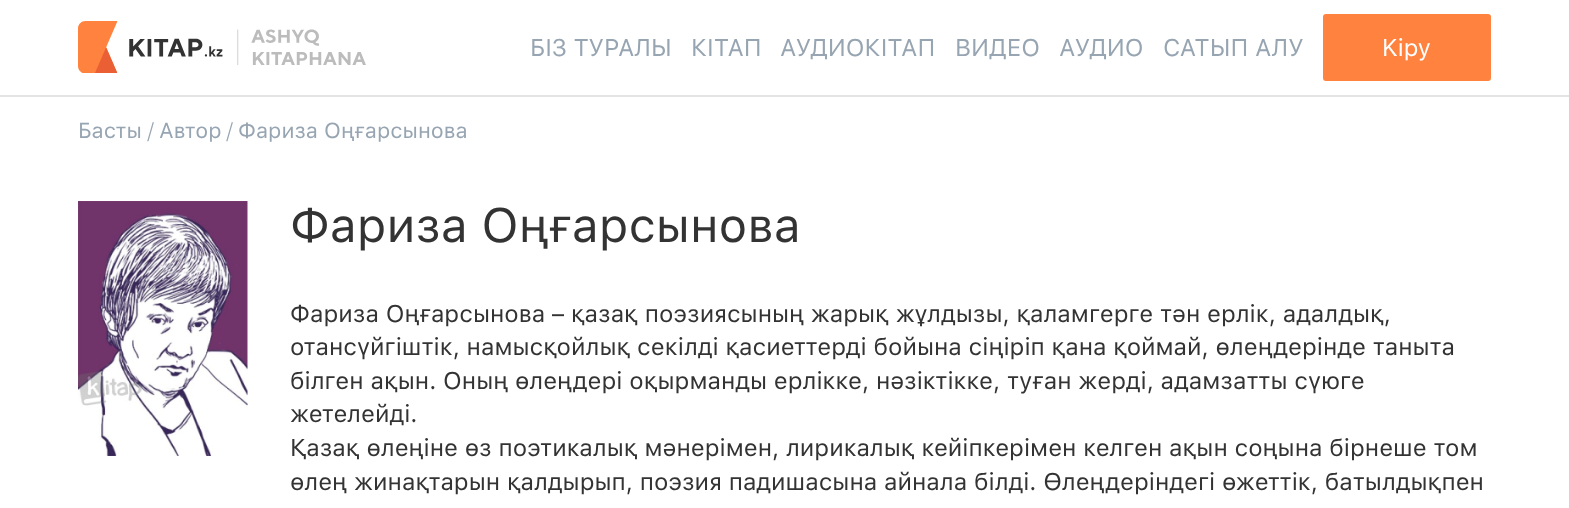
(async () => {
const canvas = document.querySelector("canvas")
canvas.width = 1569
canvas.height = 508
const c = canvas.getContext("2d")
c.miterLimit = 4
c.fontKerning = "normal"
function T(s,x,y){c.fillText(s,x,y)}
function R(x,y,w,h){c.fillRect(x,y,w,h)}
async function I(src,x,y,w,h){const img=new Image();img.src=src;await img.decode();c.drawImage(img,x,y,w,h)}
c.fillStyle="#fff"
R(0,0,1569,508)
c.fillStyle="#e4e4e4"
R(0,95,1569,2)
await I("1.png",78,21,288,52)
c.font="24px SF Pro Text"
c.fillStyle="#97a5b2"
T("БІЗ ТУРАЛЫ",530,56)
T("КІТАП",691,56)
T("АУДИОКІТАП",780,56)
T("ВИДЕО",955,56)
T("АУДИО",1059,56)
T("САТЫП АЛУ",1163,56)
c.fillStyle="#ff833e"
c.beginPath()
c.roundRect(1324,15,166,65,2)
c.fill()
c.strokeStyle="#ff833e"
c.lineWidth=2
c.stroke()
c.fillStyle="#fff"
T("Kipy",1382,56)
c.font="21.6px SF Pro Text"
c.fillStyle="#97a5b2"
T("Басты",78,138)
c.font="300 21.6px SF Pro Text"
T("/",147,138)
c.font="21.6px SF Pro Text"
T("Автор",159,138)
c.font="300 21.6px SF Pro Text"
T("/",226,138)
c.font="21.6px SF Pro Text"
T("Фариза Оңғарсынова",238,138)
await I("2.png",78,201,170,255)
c.font="48px SF Pro Text"
c.fillStyle="#333"
T("Фариза Оңғарсынова",290,242)
c.font="24px SF Pro Text"
T("Фариза Оңғарсынова – қазақ поэзиясының жарық жұлдызы, қаламгерге тән ерлік, адалдық,",290,322)
T("отансүйгіштік, намысқойлық секілді қасиеттерді бойына сіңіріп қана қоймай, өлеңдерінде таныта",290,355)
T("білген ақын. Оның өлеңдері оқырманды ерлікке, нәзіктікке, туған жерді, адамзатты сүюге",290,389)
T("жетелейді.",290,422)
T("Қазақ өлеңіне өз поэтикалық мәнерімен, лирикалық кейіпкерімен келген ақын соңына бірнеше том",290,456)
T("өлең жинақтарын қалдырып, поэзия падишасына айнала білді. Өлеңдеріндегі өжеттік, батылдықпен",290,490)
})()
